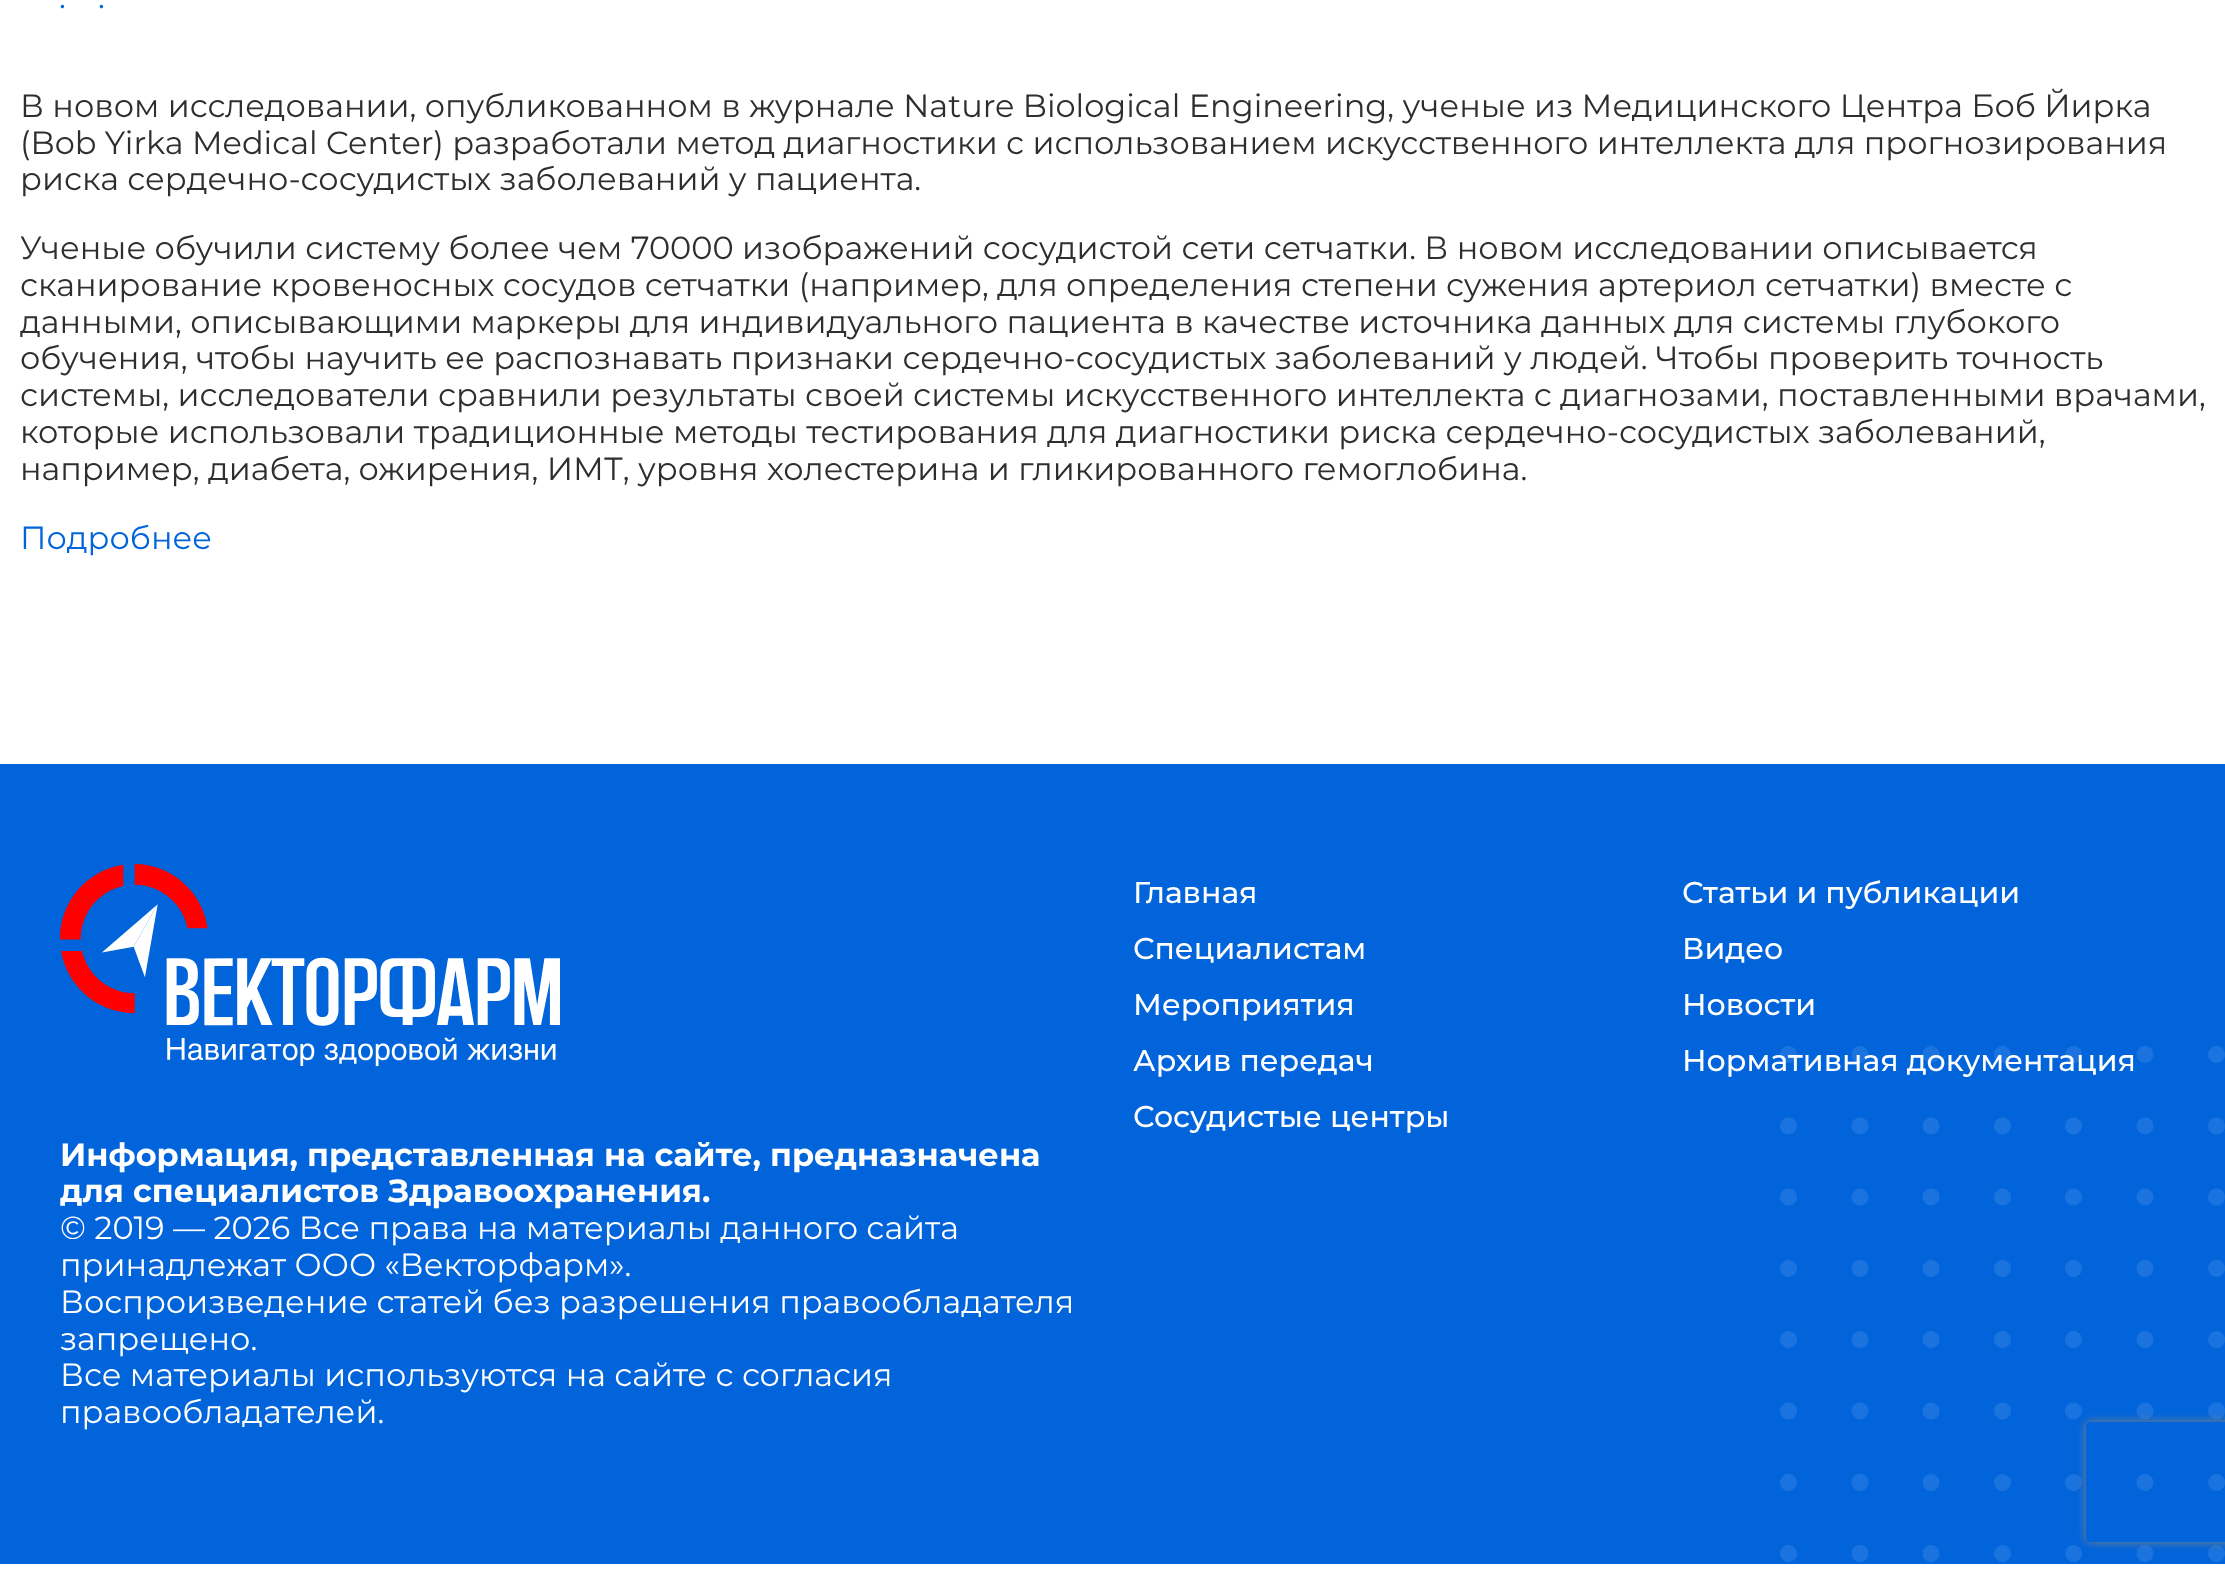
(async () => {
const canvas = document.querySelector("canvas")
canvas.width = 2225
canvas.height = 1570
const c = canvas.getContext("2d")
c.miterLimit = 4
c.fontKerning = "normal"
function T(s,x,y){c.fillText(s,x,y)}
function R(x,y,w,h){c.fillRect(x,y,w,h)}
async function I(src,x,y,w,h){const img=new Image();img.src=src;await img.decode();c.drawImage(img,x,y,w,h)}
let path
c.fillStyle="#fff"
R(0,0,2225,1570)
c.font="32px Montserrat"
c.fillStyle="#0164db"
T(".",59,8)
T(".",98,8)
c.fillStyle="#2e2e2e"
T("В новом исследовании, опубликованном в журнале Nature Biological Engineering, ученые из Медицинского Центра Боб Йирка",20,117)
T("(Bob Yirka Medical Center) разработали метод диагностики с использованием искусственного интеллекта для прогнозирования",20,154)
T("риска сердечно-сосудистых заболеваний у пациента.",20,190)
T("Ученые обучили систему более чем 70000 изображений сосудистой сети сетчатки. В новом исследовании описывается",20,259)
T("сканирование кровеносных сосудов сетчатки (например, для определения степени сужения артериол сетчатки) вместе с",20,296)
T("данными, описывающими маркеры для индивидуального пациента в качестве источника данных для системы глубокого",20,333)
T("обучения, чтобы научить ее распознавать признаки сердечно-сосудистых заболеваний у людей. Чтобы проверить точность",20,369)
T("системы, исследователи сравнили результаты своей системы искусственного интеллекта с диагнозами, поставленными врачами,",20,406)
T("которые использовали традиционные методы тестирования для диагностики риска сердечно-сосудистых заболеваний,",20,443)
T("например, диабета, ожирения, ИМТ, уровня холестерина и гликированного гемоглобина.",20,480)
c.fillStyle="#0164db"
T("Подробнее",20,549)
R(0,764,2225,800)
await I("1.png",1780,1046,445,516)
c.font="500 30px Montserrat"
c.fillStyle="#fff"
T("Главная",1133,903)
T("Статьи и публикации",1682,903)
T("Специалистам",1133,959)
T("Видео",1682,959)
T("Мероприятия",1133,1015)
T("Новости",1682,1015)
T("Архив передач",1133,1071)
T("Нормативная документация",1682,1071)
T("Сосудистые центры",1133,1127)
await I("2.png",60,864,500,202)
c.font="bold 32px Montserrat"
T("Информация, представленная на сайте, предназначена",60,1166)
T("для специалистов Здравоохранения.",60,1202)
c.font="32px Montserrat"
T("© 2019 — 2026 Все права на материалы данного сайта",60,1239)
T("принадлежат ООО «Векторфарм».",60,1276)
T("Воспроизведение статей без разрешения правообладателя",60,1313)
T("запрещено.",60,1350)
T("Все материалы используются на сайте с согласия",60,1386)
T("правообладателей.",60,1423)
c.save()
path = new Path2D("M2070 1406h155v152h-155zm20 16h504c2 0 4 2 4 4v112c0 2-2 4-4 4h-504c-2 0-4-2-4-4v-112c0-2 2-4 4-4z")
c.clip(path,"evenodd")
c.fillStyle="#808080"
c.filter="blur(5px)"
c.beginPath()
c.roundRect(2086,1422,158,120,4)
c.fill()
c.filter="none"
c.restore()
})()
